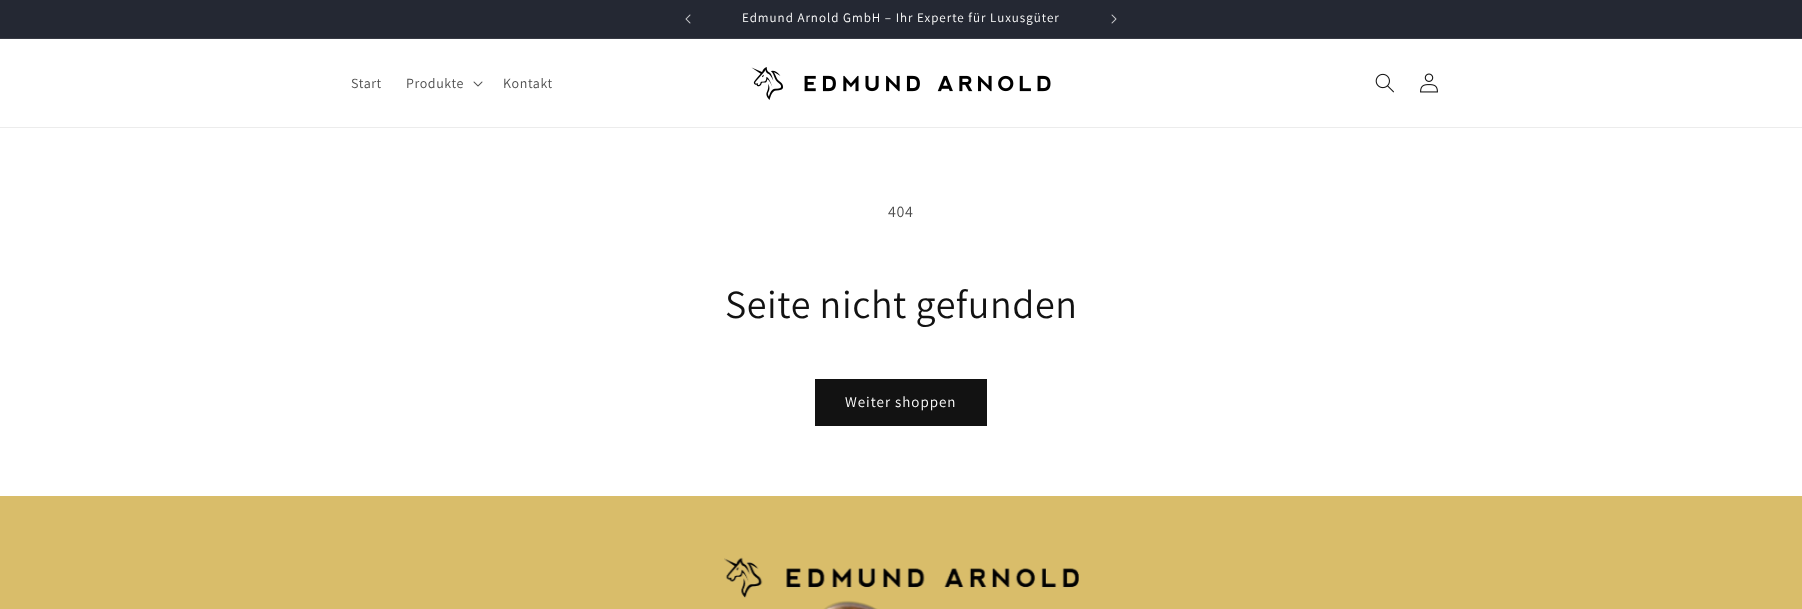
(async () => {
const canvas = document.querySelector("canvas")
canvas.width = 1802
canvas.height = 609
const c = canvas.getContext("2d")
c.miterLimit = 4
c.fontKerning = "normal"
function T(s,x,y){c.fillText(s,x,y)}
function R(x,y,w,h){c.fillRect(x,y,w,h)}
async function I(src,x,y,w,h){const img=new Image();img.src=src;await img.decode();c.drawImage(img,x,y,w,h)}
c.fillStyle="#fff"
R(0,0,1802,609)
c.fillStyle="#242833"
R(0,0,1802,38)
c.fillStyle="#363943"
R(0,38,1802,1)
await I("1.png",685,14,6,10)
c.letterSpacing="1px"
c.font="13px Assistant"
c.fillStyle="#fff"
T("Edmund Arnold GmbH – Ihr Experte für Luxusgüter",742,22)
await I("2.png",1111,14,6,10)
c.fillStyle="#ececec"
R(0,127,1802,1)
c.letterSpacing="0.6px"
c.font="14px Assistant"
c.fillStyle="#4d4d4d"
T("Start",351,88)
T("Produkte",406,88)
await I("3.png",473,81,10,6)
T("Kontakt",503,88)
await I("4.png",751,67,300,33)
await I("5.png",1375,73,19,20)
await I("6.png",1420,73,18,20)
c.font="16px Assistant"
T("404",888,217)
c.font="40px Assistant"
c.fillStyle="#121212"
T("Seite nicht gefunden",725,318)
R(815,379,172,47)
c.letterSpacing="1px"
c.font="15px Assistant"
c.fillStyle="#fff"
T("Weiter shoppen",845,407)
c.fillStyle="#d9bd6a"
R(0,496,1802,113)
await I("7.png",724,557,355,52)
})()
